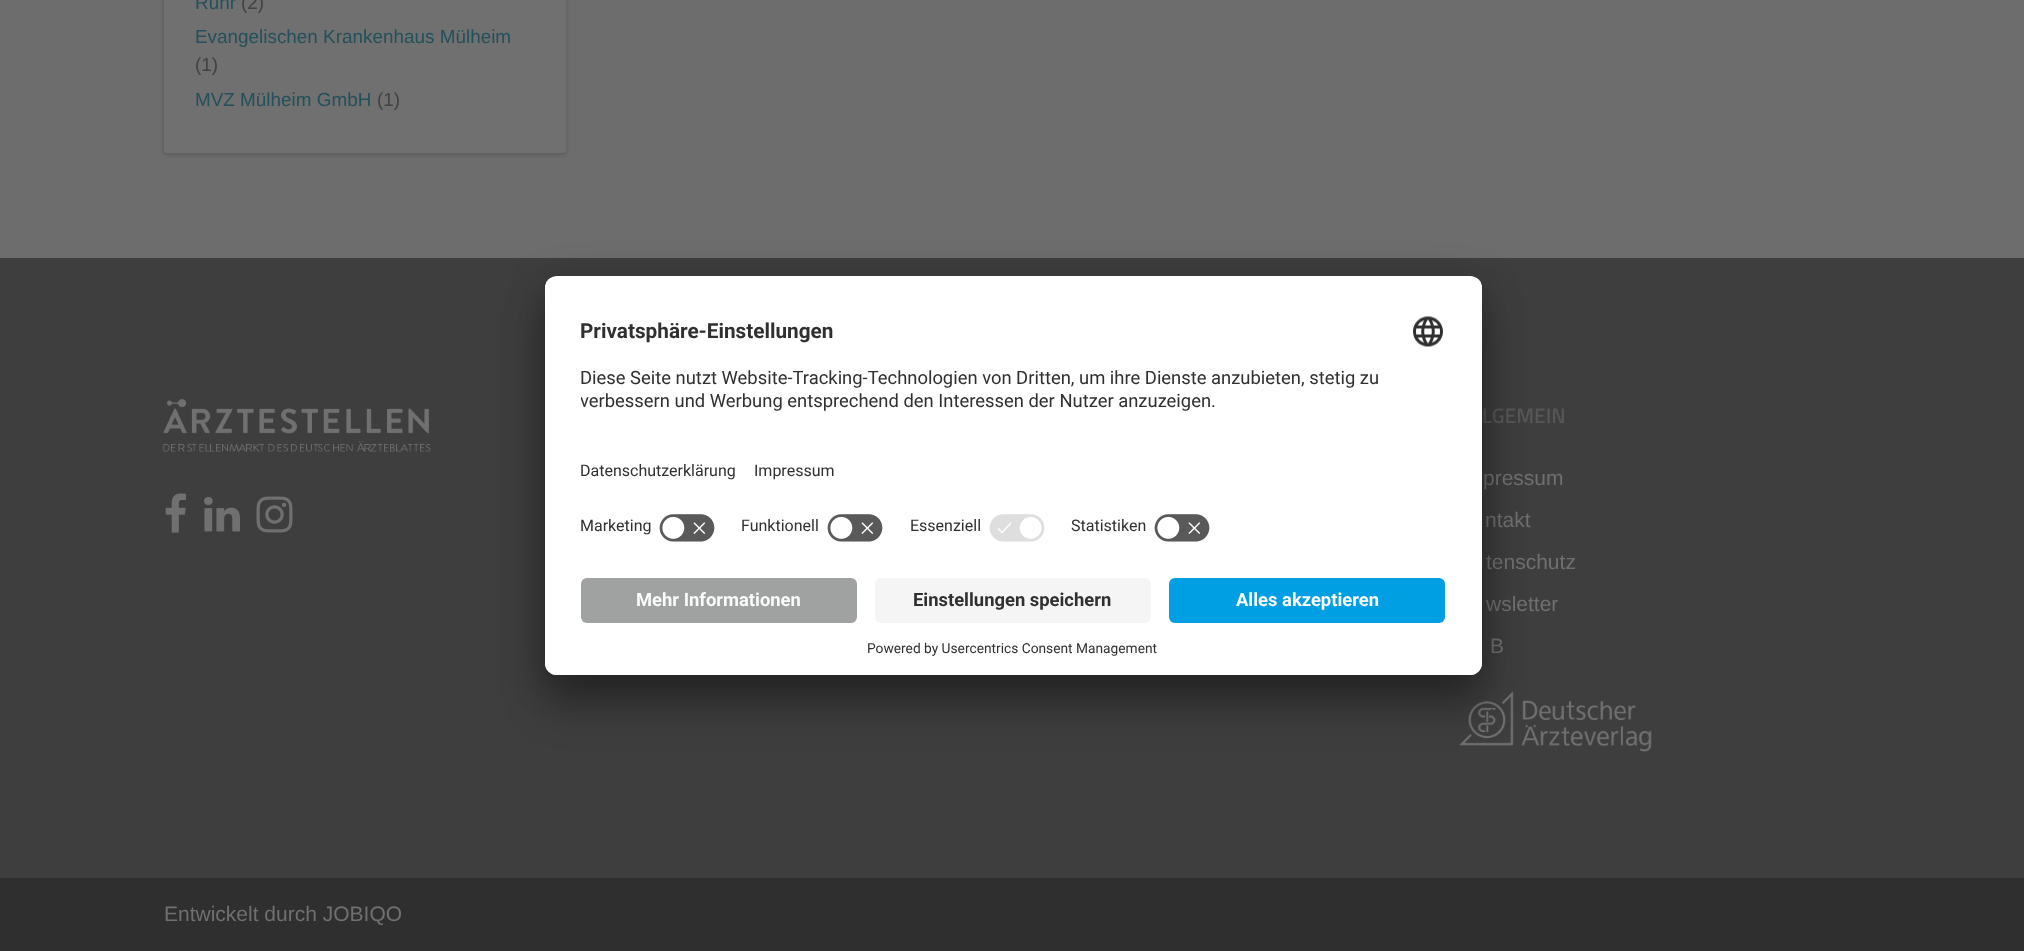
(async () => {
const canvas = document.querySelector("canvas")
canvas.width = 2024
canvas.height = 951
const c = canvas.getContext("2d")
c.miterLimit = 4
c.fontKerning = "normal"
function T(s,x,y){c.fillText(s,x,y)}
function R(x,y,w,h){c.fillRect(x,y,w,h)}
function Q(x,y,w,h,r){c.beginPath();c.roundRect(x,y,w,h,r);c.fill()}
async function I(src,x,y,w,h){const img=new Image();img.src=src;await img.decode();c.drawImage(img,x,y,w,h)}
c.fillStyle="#6d6d6d"
R(0,0,2024,951)
c.fillStyle="#24242440"
c.filter="blur(2px)"
c.beginPath()
c.roundRect(164,-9,402,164,3)
c.fill()
c.filter="none"
c.fillStyle="#707070"
Q(164,-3,402,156,3)
c.font="18.9px Liberation Sans"
c.fillStyle="#24505b"
T("Ruhr",195,9)
c.fillStyle="#424242"
T("(2)",241,9)
c.fillStyle="#24505b"
T("Evangelischen Krankenhaus Mülheim",195,43)
c.fillStyle="#424242"
T("(1)",195,71)
c.fillStyle="#24505b"
T("MVZ Mülheim GmbH",195,106)
c.fillStyle="#424242"
T("(1)",377,106)
c.fillStyle="#3e3e3e"
R(0,258,2024,620)
await I("1.png",163,399,268,53)
await I("2.png",165,493,21,40)
await I("3.png",204,497,36,35)
await I("4.png",256,496,37,37)
await I("5.png",1459,691,193,61)
c.font="600 21px Titillium Web"
c.fillStyle="#565656"
T("LGEMEIN",1482,423)
c.font="21px Liberation Sans"
c.fillStyle="#707070"
T("pressum",1483,485)
T("ntakt",1485,527)
T("tenschutz",1486,569)
T("wsletter",1486,611)
T("B",1490,653)
c.fillStyle="#2f2f2f"
R(0,878,2024,73)
c.fillStyle="#707070"
T("Entwickelt durch JOBIQO",164,921)
c.fillStyle="#0000004d"
c.filter="blur(21px)"
c.beginPath()
c.roundRect(545,306,937,399,12)
c.fill()
c.filter="none"
c.fillStyle="#00000038"
c.filter="blur(19.5px)"
c.beginPath()
c.roundRect(545,284,937,399,12)
c.fill()
c.filter="none"
c.fillStyle="#fff"
Q(545,276,937,399,12)
c.save()
c.beginPath()
c.roundRect(545,276,937,399,12)
c.clip()
c.beginPath()
c.roundRect(545,276,937,290,[12,12,0,0])
c.clip()
R(545,278,937,288)
R(545,278,937,228)
c.restore()
c.font="bold 20.75px Roboto"
c.fillStyle="#303030"
T("Privatsphäre-Einstellungen",580,338)
await I("6.png",1413,316,30,31)
c.font="18.4px Roboto"
T("Diese Seite nutzt Website-Tracking-Technologien von Dritten, um ihre Dienste anzubieten, stetig zu",580,384)
c.save()
c.beginPath()
c.rect(581,362,865,58)
c.clip()
T("verbessern und Werbung entsprechend den Interessen der Nutzer anzuzeigen.",580,407)
c.restore()
c.font="16px Roboto"
T("Datenschutzerklärung",580,476)
T("Impressum",754,476)
T("Marketing",580,531)
await I("7.png",659,514,56,28)
T("Funktionell",741,531)
await I("7.png",827,514,56,28)
T("Essenziell",910,531)
await I("8.png",989,514,56,28)
T("Statistiken",1071,531)
await I("7.png",1154,514,56,28)
c.fillStyle="#fff"
c.beginPath()
c.roundRect(545,566,937,109,[0,0,12,12])
c.fill()
c.fillStyle="#a0a1a1"
Q(581,578,276,45,6)
c.font="bold 18.4px Roboto"
c.fillStyle="#fafafa"
T("Mehr Informationen",636,606)
c.fillStyle="#f5f5f5"
Q(875,578,276,45,6)
c.fillStyle="#303030"
T("Einstellungen speichern",913,606)
c.fillStyle="#009ee3"
Q(1169,578,276,45,6)
c.fillStyle="#fafafa"
T("Alles akzeptieren",1236,606)
c.font="13.75px Roboto"
c.fillStyle="#303030"
T("Powered by Usercentrics Consent Management",867,653)
})()
